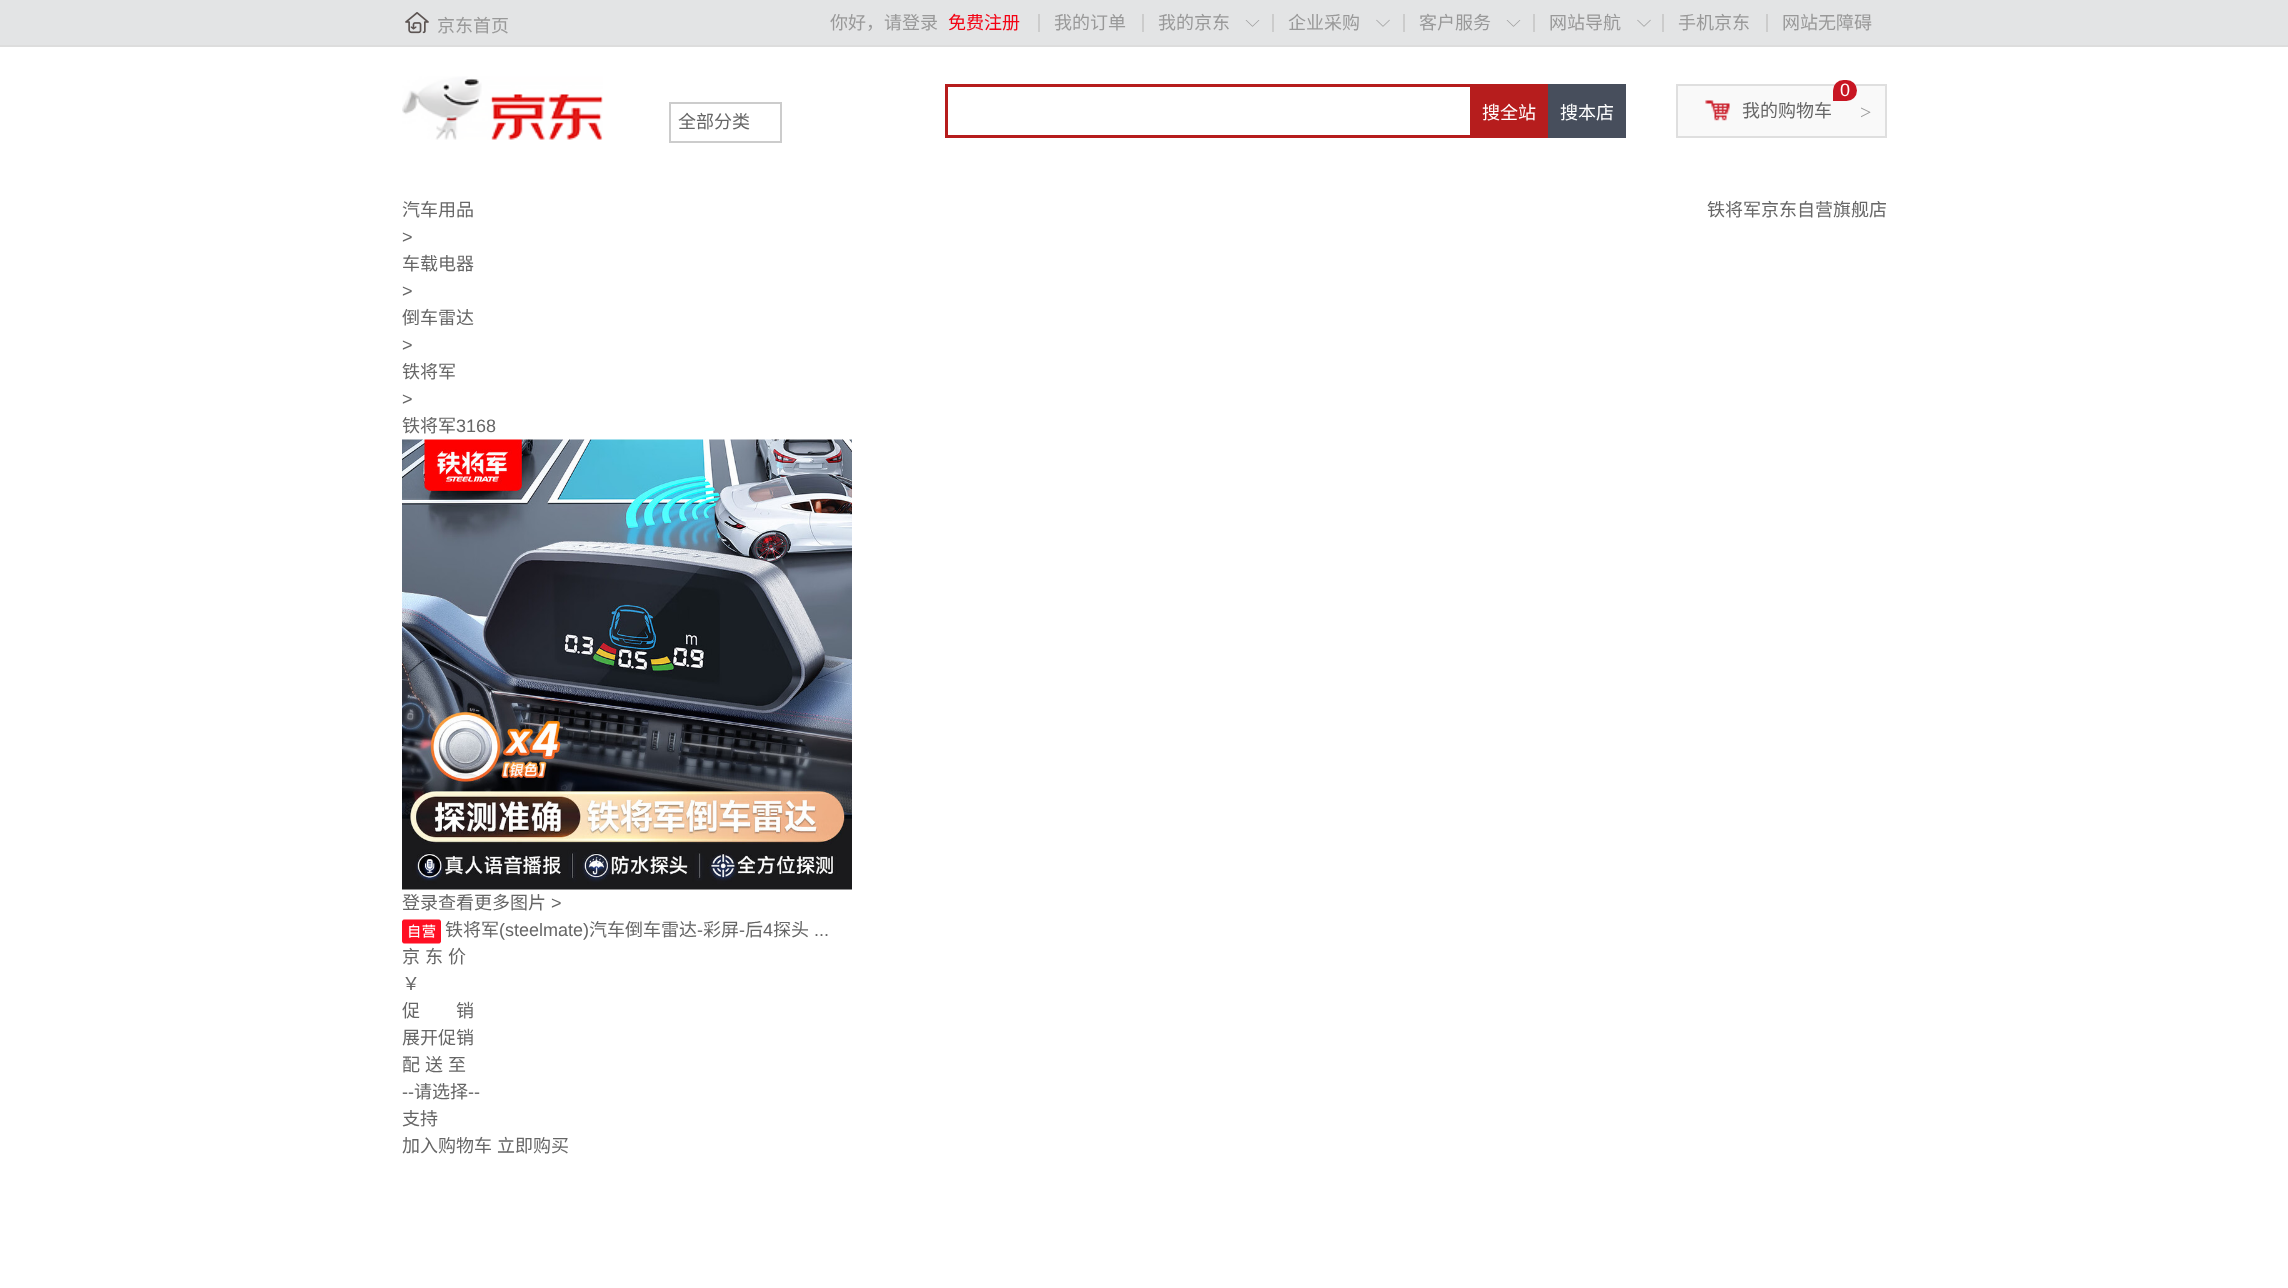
(async () => {
const canvas = document.querySelector("canvas")
canvas.width = 2288
canvas.height = 1288
const c = canvas.getContext("2d")
c.miterLimit = 4
c.fontKerning = "normal"
function T(s,x,y){c.fillText(s,x,y)}
function R(x,y,w,h){c.fillRect(x,y,w,h)}
async function I(src,x,y,w,h){const img=new Image();img.src=src;await img.decode();c.drawImage(img,x,y,w,h)}
c.fillStyle="#fff"
R(0,0,2288,1288)
c.fillStyle="#e3e4e5"
R(0,0,2288,45)
c.fillStyle="#ddd"
R(0,45,2288,2)
await I("1.png",405,12,24,22)
c.font="18px Noto Sans CJK SC"
c.fillStyle="#999"
T("京东首页",437,32)
T("你好，请登录",830,29)
c.fillStyle="#f30213"
T("免费注册",948,29)
c.fillStyle="#ccc"
R(1038,14,2,18)
c.fillStyle="#999"
T("我的订单",1054,29)
c.fillStyle="#ccc"
R(1142,14,2,18)
c.fillStyle="#999"
T("我的京东",1158,29)
await I("2.png",1245,20,15,7)
c.fillStyle="#ccc"
R(1272,14,2,18)
c.fillStyle="#999"
T("企业采购",1288,29)
await I("3.png",1376,19,14,8)
c.fillStyle="#ccc"
R(1403,14,2,18)
c.fillStyle="#999"
T("客户服务",1419,29)
await I("2.png",1506,20,15,7)
c.fillStyle="#ccc"
R(1533,14,2,18)
c.fillStyle="#999"
T("网站导航",1549,29)
await I("3.png",1637,19,14,8)
c.fillStyle="#ccc"
R(1662,14,2,18)
c.fillStyle="#999"
T("手机京东",1678,29)
c.fillStyle="#ccc"
R(1766,14,2,18)
c.fillStyle="#999"
T("网站无障碍",1782,29)
await I("4.png",402,76,201,64)
c.strokeStyle="#ccc"
c.lineWidth=2
c.strokeRect(670,103,111,39)
c.fillStyle="#666"
T("全部分类",678,128)
c.fillStyle="#b61d1d"
R(945,84,525,3)
R(945,135,525,3)
R(945,84,3,54)
R(1470,84,78,54)
c.fillStyle="#fff"
T("搜全站",1482,119)
c.fillStyle="#474e5c"
R(1548,84,78,54)
c.fillStyle="#fff"
T("搜本店",1560,119)
c.fillStyle="#f9f9f9"
c.beginPath()
c.rect(1677,85,209,52)
c.fill()
c.strokeStyle="#dfdfdf"
c.stroke()
c.fillStyle="#c81623"
c.beginPath()
c.roundRect(1833,80,24,21,[10.5,10.5,10.5,0])
c.fill()
c.font="18px Liberation Sans"
c.fillStyle="#fff"
T("0",1840,96)
await I("5.png",1705,100,25,21)
c.font="18px Noto Sans CJK SC"
c.fillStyle="#666"
T("我的购物车",1742,117)
c.font="20px Liberation Serif"
c.fillStyle="#999"
T(">",1860,119)
c.font="18px Noto Sans CJK SC"
c.fillStyle="#666"
T("汽车用品",402,216)
c.font="18px Liberation Sans"
T(">",402,243)
c.font="18px Noto Sans CJK SC"
T("车载电器",402,270)
c.font="18px Liberation Sans"
T(">",402,297)
c.font="18px Noto Sans CJK SC"
T("倒车雷达",402,324)
c.font="18px Liberation Sans"
T(">",402,351)
c.font="18px Noto Sans CJK SC"
T("铁将军",402,378)
c.font="18px Liberation Sans"
T(">",402,405)
c.font="18px Noto Sans CJK SC"
T("铁将军",402,432)
c.font="18px Liberation Sans"
T("3168",456,432)
c.font="18px Noto Sans CJK SC"
T("铁将军京东自营旗舰店",1707,216)
await I("6.png",402,439,450,451)
T("登录查看更多图片",402,909)
c.font="18px Liberation Sans"
T(">",551,909)
await I("7.png",402,919,39,25)
c.font="18px Noto Sans CJK SC"
T("铁将军",445,936)
c.font="18px Liberation Sans"
T("(steelmate)",499,936)
c.font="18px Noto Sans CJK SC"
T("汽车倒车雷达",589,936)
c.font="18px Liberation Sans"
T("-",697,936)
c.font="18px Noto Sans CJK SC"
T("彩屏",703,936)
c.font="18px Liberation Sans"
T("-",739,936)
c.font="18px Noto Sans CJK SC"
T("后",745,936)
c.font="18px Liberation Sans"
T("4",763,936)
c.font="18px Noto Sans CJK SC"
T("探头",773,936)
c.font="18px Liberation Sans"
T("...",814,936)
c.wordSpacing="1px"
c.font="18px Noto Sans CJK SC"
T("京 东 价",402,963)
c.wordSpacing="0px"
T("￥",402,990)
T("促　　销",402,1017)
T("展开促销",402,1044)
c.wordSpacing="1px"
T("配 送 至",402,1071)
c.wordSpacing="0px"
c.font="18px Liberation Sans"
T("--",402,1098)
c.font="18px Noto Sans CJK SC"
T("请选择",414,1098)
c.font="18px Liberation Sans"
T("--",468,1098)
c.font="18px Noto Sans CJK SC"
T("支持",402,1125)
T("加入购物车",402,1152)
T("立即购买",497,1152)
})()
